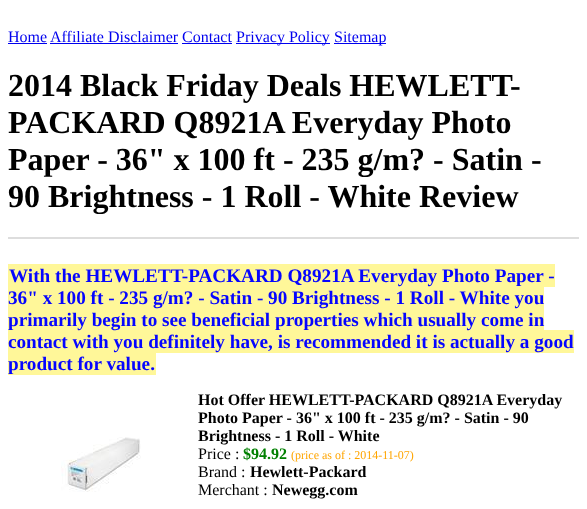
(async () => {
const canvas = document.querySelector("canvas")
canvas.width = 587
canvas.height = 509
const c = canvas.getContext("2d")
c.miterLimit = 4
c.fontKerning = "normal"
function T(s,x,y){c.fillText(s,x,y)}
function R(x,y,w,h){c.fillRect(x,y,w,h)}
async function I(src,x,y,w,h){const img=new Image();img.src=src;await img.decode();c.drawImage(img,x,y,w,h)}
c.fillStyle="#fff"
R(0,0,587,509)
c.font="16px Liberation Serif"
c.fillStyle="#00e"
T("Home",8,42)
R(8,43,39,1)
T("Affiliate Disclaimer Contact",50,42)
R(50,43,128,1)
R(236,43,94,1)
T("Privacy Policy",236,42)
R(334,43,52,1)
T("Sitemap",334,42)
R(182,43,50,1)
c.font="bold 32px Liberation Serif"
c.fillStyle="#000"
T("2014 Black Friday Deals HEWLETT-",8,96)
T("PACKARD Q8921A Everyday Photo",8,133)
T("Paper - 36\" x 100 ft - 235 g/m? - Satin -",8,170)
T("90 Brightness - 1 Roll - White Review",8,207)
c.fillStyle="#ddd"
R(8,237,571,2)
c.fillStyle="#fff799"
R(8,264,547,23)
c.font="bold 19.2px Liberation Serif"
c.fillStyle="#0605ff"
T("With the HEWLETT-PACKARD Q8921A Everyday Photo Paper -",9,282)
c.fillStyle="#fff799"
R(8,287,536,43)
c.fillStyle="#0605ff"
T("36\" x 100 ft - 235 g/m? - Satin - 90 Brightness - 1 Roll - White you",8,304)
c.fillStyle="#fff799"
R(8,330,566,23)
c.fillStyle="#0605ff"
T("primarily begin to see beneficial properties which usually come in",8,326)
T("contact with you definitely have, is recommended it is actually a good",8,348)
c.fillStyle="#fff799"
R(8,353,148,22)
c.fillStyle="#0605ff"
T("product for value.",8,370)
c.font="bold 16px Liberation Serif"
c.fillStyle="#000"
T("Hot Offer HEWLETT-PACKARD Q8921A Everyday",198,405)
T("Photo Paper - 36\" x 100 ft - 235 g/m? - Satin - 90",198,423)
await I("1.png",61,437,80,55)
T("Brightness - 1 Roll - White",198,441)
c.font="16px Liberation Serif"
T("Price :",198,459)
c.font="bold 16px Liberation Serif"
c.fillStyle="#008000"
T("$94.92",243,459)
c.font="12px Liberation Serif"
c.fillStyle="#ffa500"
T("(price as of : 2014-11-07)",291,459)
c.font="16px Liberation Serif"
c.fillStyle="#000"
T("Brand :",198,477)
c.font="bold 16px Liberation Serif"
T("Hewlett-Packard",250,477)
c.font="16px Liberation Serif"
T("Merchant :",198,495)
c.font="bold 16px Liberation Serif"
T("Newegg.com",272,495)
})()
